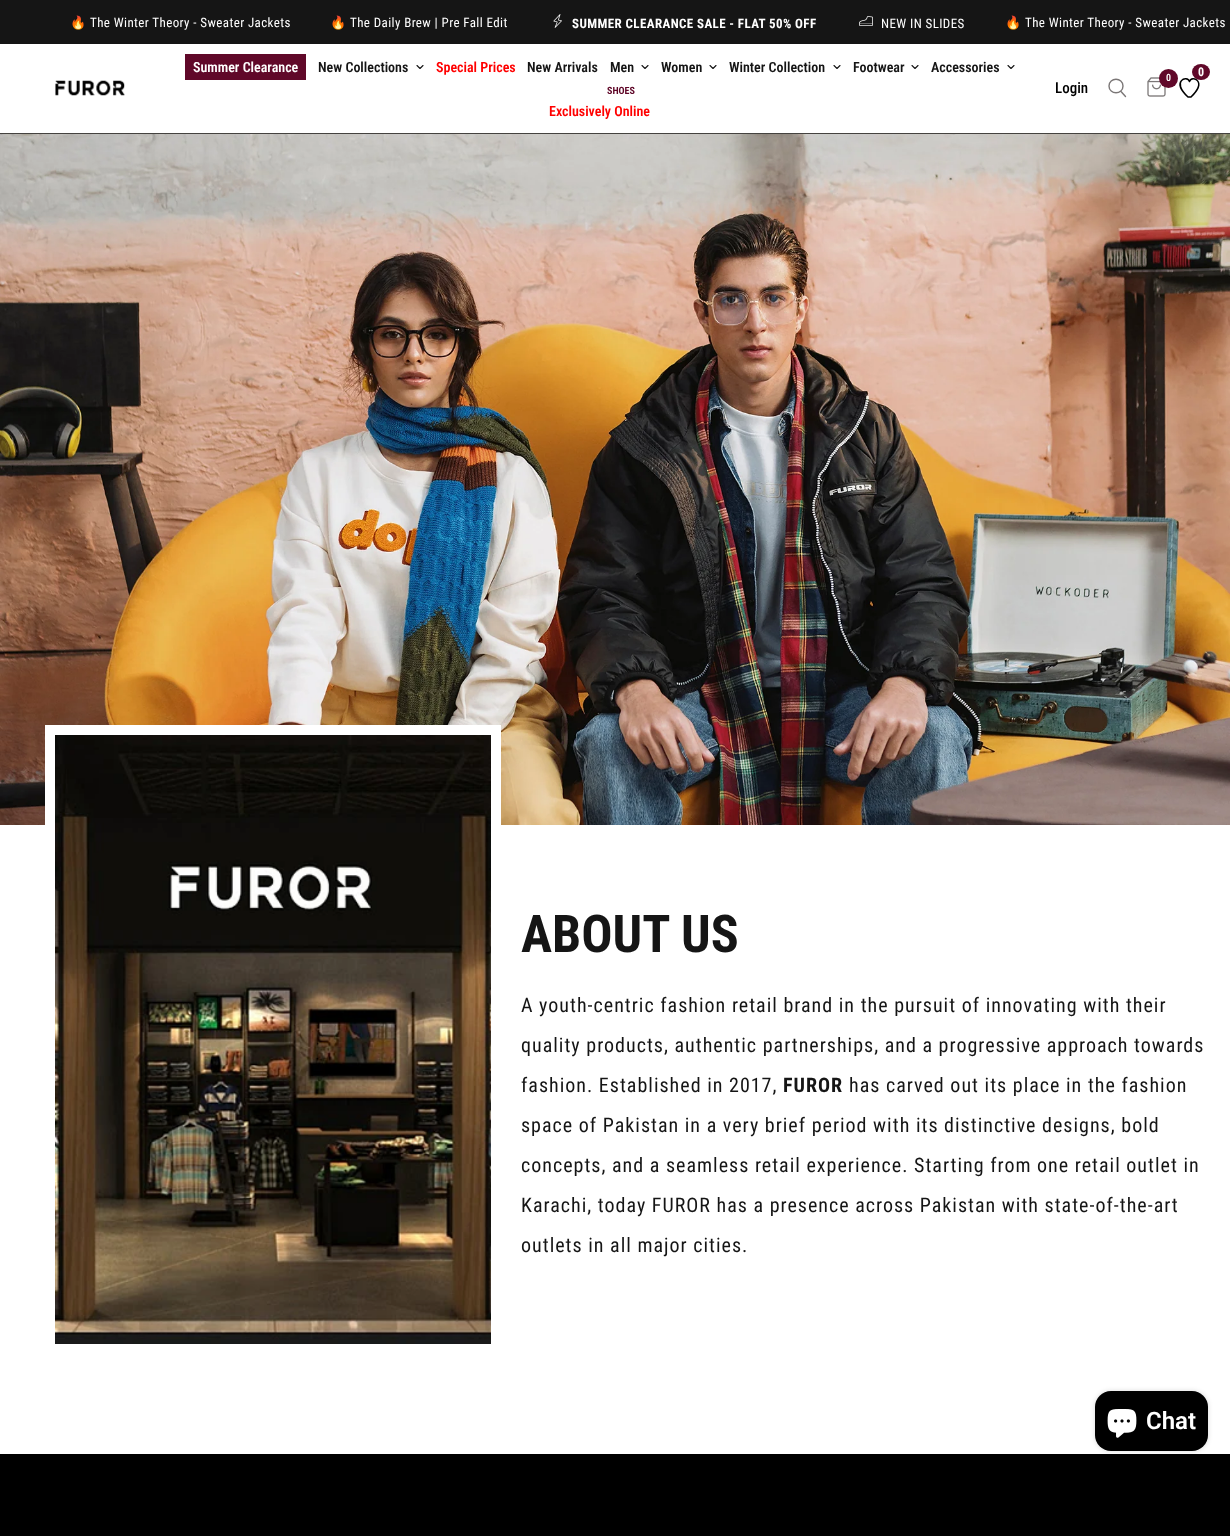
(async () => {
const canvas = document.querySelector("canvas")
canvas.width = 1230
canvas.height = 1536
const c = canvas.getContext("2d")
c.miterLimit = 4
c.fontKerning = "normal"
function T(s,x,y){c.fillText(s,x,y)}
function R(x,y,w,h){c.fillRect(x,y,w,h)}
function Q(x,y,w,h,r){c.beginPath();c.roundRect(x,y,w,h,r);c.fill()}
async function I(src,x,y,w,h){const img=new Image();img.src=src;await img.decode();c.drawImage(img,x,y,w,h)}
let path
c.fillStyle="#fff"
R(0,0,1230,1536)
c.fillStyle="#151515"
R(0,0,1230,44)
c.letterSpacing="0.4px"
c.font="13px Noto Color Emoji"
c.fillStyle="#fff"
T("🔥",70,27)
c.font="13px Roboto Condensed"
T("The Winter Theory - Sweater Jackets",90,27)
c.font="13px Noto Color Emoji"
T("🔥",330,27)
c.font="13px Roboto Condensed"
T("The Daily Brew | Pre Fall Edit",350,27)
await I("1.png",553,14,9,14)
c.font="bold 13px Roboto Condensed"
T("SUMMER CLEARANCE SALE - FLAT 50% OFF",572,28)
await I("2.png",859,16,14,10)
c.font="13px Roboto Condensed"
T("NEW IN SLIDES",881,28)
c.font="13px Noto Color Emoji"
T("🔥",1005,27)
c.font="13px Roboto Condensed"
T("The Winter Theory - Sweater Jackets",1025,27)
c.fillStyle="#44423f"
R(0,133,1230,1)
await I("3.png",55,80,70,16)
c.fillStyle="#600829"
R(185,54,121,26)
c.letterSpacing="0px"
c.font="600 14px Roboto Condensed"
c.fillStyle="#fff"
T("Summer Clearance",193,72)
c.fillStyle="#151515"
T("New Collections",318,72)
path = new Path2D("M423 65.5l-3 3l-3-3")
c.strokeStyle="#151515"
c.lineWidth=1.1
c.lineCap="round"
c.lineJoin="round"
c.stroke(path)
c.fillStyle="#f00"
T("Special Prices",436,72)
c.fillStyle="#151515"
T("New Arrivals",527,72)
T("Men",610,72)
path = new Path2D("M648 65.5l-3 3l-3-3")
c.stroke(path)
T("Women",661,72)
path = new Path2D("M716 65.5l-3 3l-3-3")
c.stroke(path)
T("Winter Collection",729,72)
path = new Path2D("M840 65.5l-3 3l-3-3")
c.stroke(path)
T("Footwear",853,72)
path = new Path2D("M918 65.5l-3 3l-3-3")
c.stroke(path)
T("Accessories",931,72)
path = new Path2D("M1014 65.5l-3 3l-3-3")
c.stroke(path)
c.font="bold 10px Roboto Condensed"
c.fillStyle="#600829"
T("SHOES",607,94)
c.font="600 14px Roboto Condensed"
c.fillStyle="#f00"
T("Exclusively Online",549,116)
c.font="500 15px Roboto Condensed"
c.fillStyle="#000"
T("Login",1055,93)
path = new Path2D("M1121 91.5l4.5 5m-2.5-10.5c0 9-14 9-14 0c0-9 14-9 14 0z")
c.strokeStyle="#7b7777"
c.lineWidth=1.4
c.stroke(path)
await I("4.png",1147,77,19,20)
c.fillStyle="#600829"
c.beginPath()
c.arc(1168.5,78.5,9.5,0,7)
c.fill()
c.font="600 10px Roboto Condensed"
c.fillStyle="#fff"
T("0",1166,81)
path = new Path2D("M1188 97c-17.5-16.5-.5-22 1.5-15.5c2-6.5 18.5-1 1.5 15.5z")
c.strokeStyle="#000"
c.lineWidth=1.5
c.stroke(path)
c.fillStyle="#600829"
c.beginPath()
c.ellipse(1201,72,9,8,0,0,7)
c.fill()
c.font="bold 12px Roboto Condensed"
c.fillStyle="#fff"
T("0",1198,76)
await I("5.png",0,134,1230,691)
c.strokeStyle="#fff"
c.lineWidth=10
c.lineJoin="miter"
c.strokeRect(50,730,446,619)
await I("6.png",55,735,436,609)
c.font="bold 52px Roboto Condensed"
c.fillStyle="#151515"
T("ABOUT US",521,952)
c.letterSpacing="1px"
c.font="20px Roboto Condensed"
T("A youth-centric fashion retail brand in the pursuit of innovating with their",521,1012)
T("quality products, authentic partnerships, and a progressive approach towards",521,1052)
T("fashion. Established in 2017,",521,1092)
c.font="bold 20px Roboto Condensed"
T("FUROR",783,1092)
c.font="20px Roboto Condensed"
T("has carved out its place in the fashion",849,1092)
T("space of Pakistan in a very brief period with its distinctive designs, bold",521,1132)
T("concepts, and a seamless retail experience. Starting from one retail outlet in",521,1172)
T("Karachi, today FUROR has a presence across Pakistan with state-of-the-art",521,1212)
T("outlets in all major cities.",521,1252)
c.fillStyle="#000"
R(0,1454,1230,82)
c.fillStyle="#00000026"
c.filter="blur(2.5px)"
c.beginPath()
c.roundRect(1095,1391,113,60,16)
c.fill()
c.filter="none"
c.fillStyle="#000"
Q(1095,1391,113,60,16)
await I("7.png",1107,1409,30,29)
c.letterSpacing="0px"
c.font="600 24px Roboto"
c.fillStyle="#fff"
T("Chat",1146,1429)
})()
